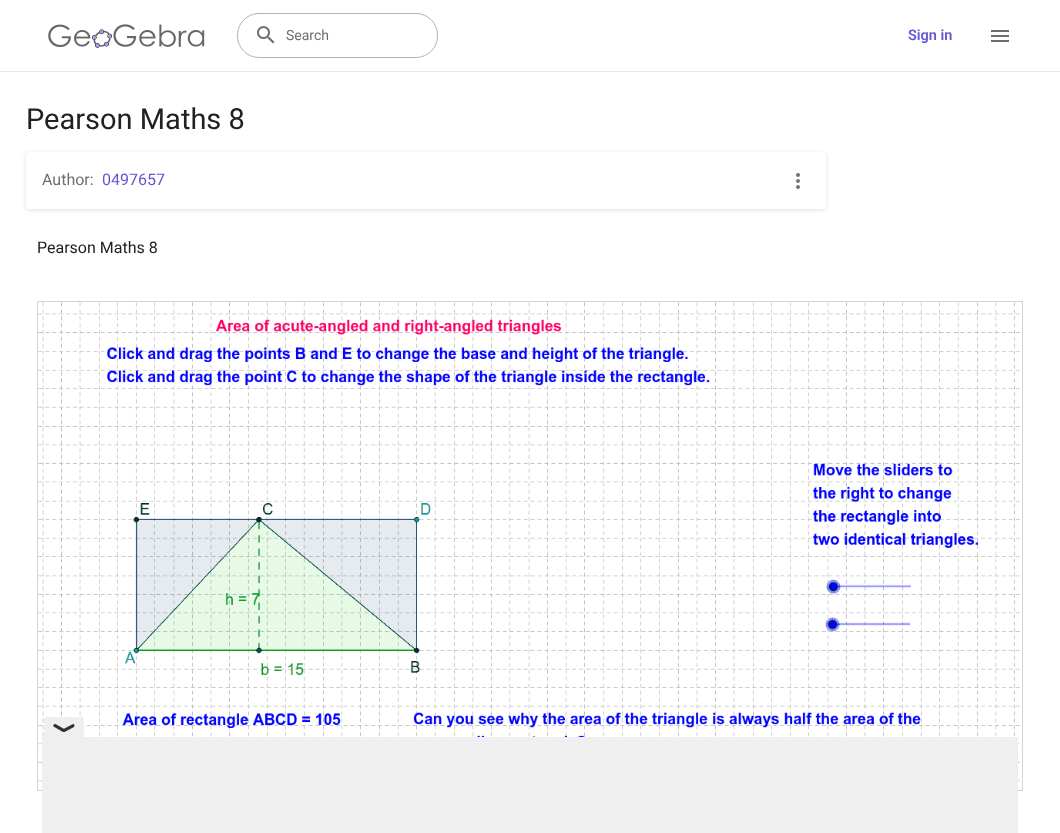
(async () => {
const canvas = document.querySelector("canvas")
canvas.width = 1060
canvas.height = 833
const c = canvas.getContext("2d")
c.miterLimit = 4
c.fontKerning = "normal"
function T(s,x,y){c.fillText(s,x,y)}
function R(x,y,w,h){c.fillRect(x,y,w,h)}
function Q(x,y,w,h,r){c.beginPath();c.roundRect(x,y,w,h,r);c.fill()}
async function I(src,x,y,w,h){const img=new Image();img.src=src;await img.decode();c.drawImage(img,x,y,w,h)}
let path
c.fillStyle="#fff"
R(0,0,1060,833)
c.fillStyle="#e6e6eb"
R(0,71,1060,1)
await I("1.png",48,24,157,24)
c.beginPath()
c.roundRect(237.5,13.5,200,44,21.5)
c.strokeStyle="#b4b3ba"
c.stroke()
await I("2.png",257,26,18,18)
c.font="14px Roboto"
c.fillStyle="#6e6d73"
T("Search",286,40)
c.font="600 14.5px Roboto"
c.fillStyle="#6557d2"
T("Sign in",908,40)
await I("3.png",991,30,18,12)
c.font="29px Roboto"
c.fillStyle="#212121"
T("Pearson Maths 8",26,129)
c.fillStyle="#1c1c1f24"
c.filter="blur(2px)"
c.beginPath()
c.roundRect(26,153,800,57,4)
c.fill()
c.filter="none"
c.fillStyle="#fff"
Q(26,152,800,57,4)
c.font="16px Roboto"
c.fillStyle="#6e6d73"
T("Author:",42,185)
c.fillStyle="#6557d2"
T("0497657",102,185)
await I("4.png",796,173,4,16)
c.fillStyle="#212121"
T("Pearson Maths 8",37,253)
await I("5.png",38,302,982,488)
c.strokeStyle="#d3d3d3"
c.strokeRect(37.5,301.5,985,489)
c.fillStyle="#efefef"
c.beginPath()
c.roundRect(44,717,40,20,[2,2,0,0])
c.fill()
c.fillStyle="#313131"
path = new Path2D("M55.5 724l9.5 5.5c.5 1.5-1 3-2 2.5l-9.5-5.5c-1-1.5 1-3 2-2.5z")
c.fill(path)
path = new Path2D("M63.5 729l9.5-5c1.5 0 2 2 1 3l-9.5 5c-1.5 0-2-2-1-3z")
c.fill(path)
c.fillStyle="#efefef"
R(42,737,976,96)
})()
